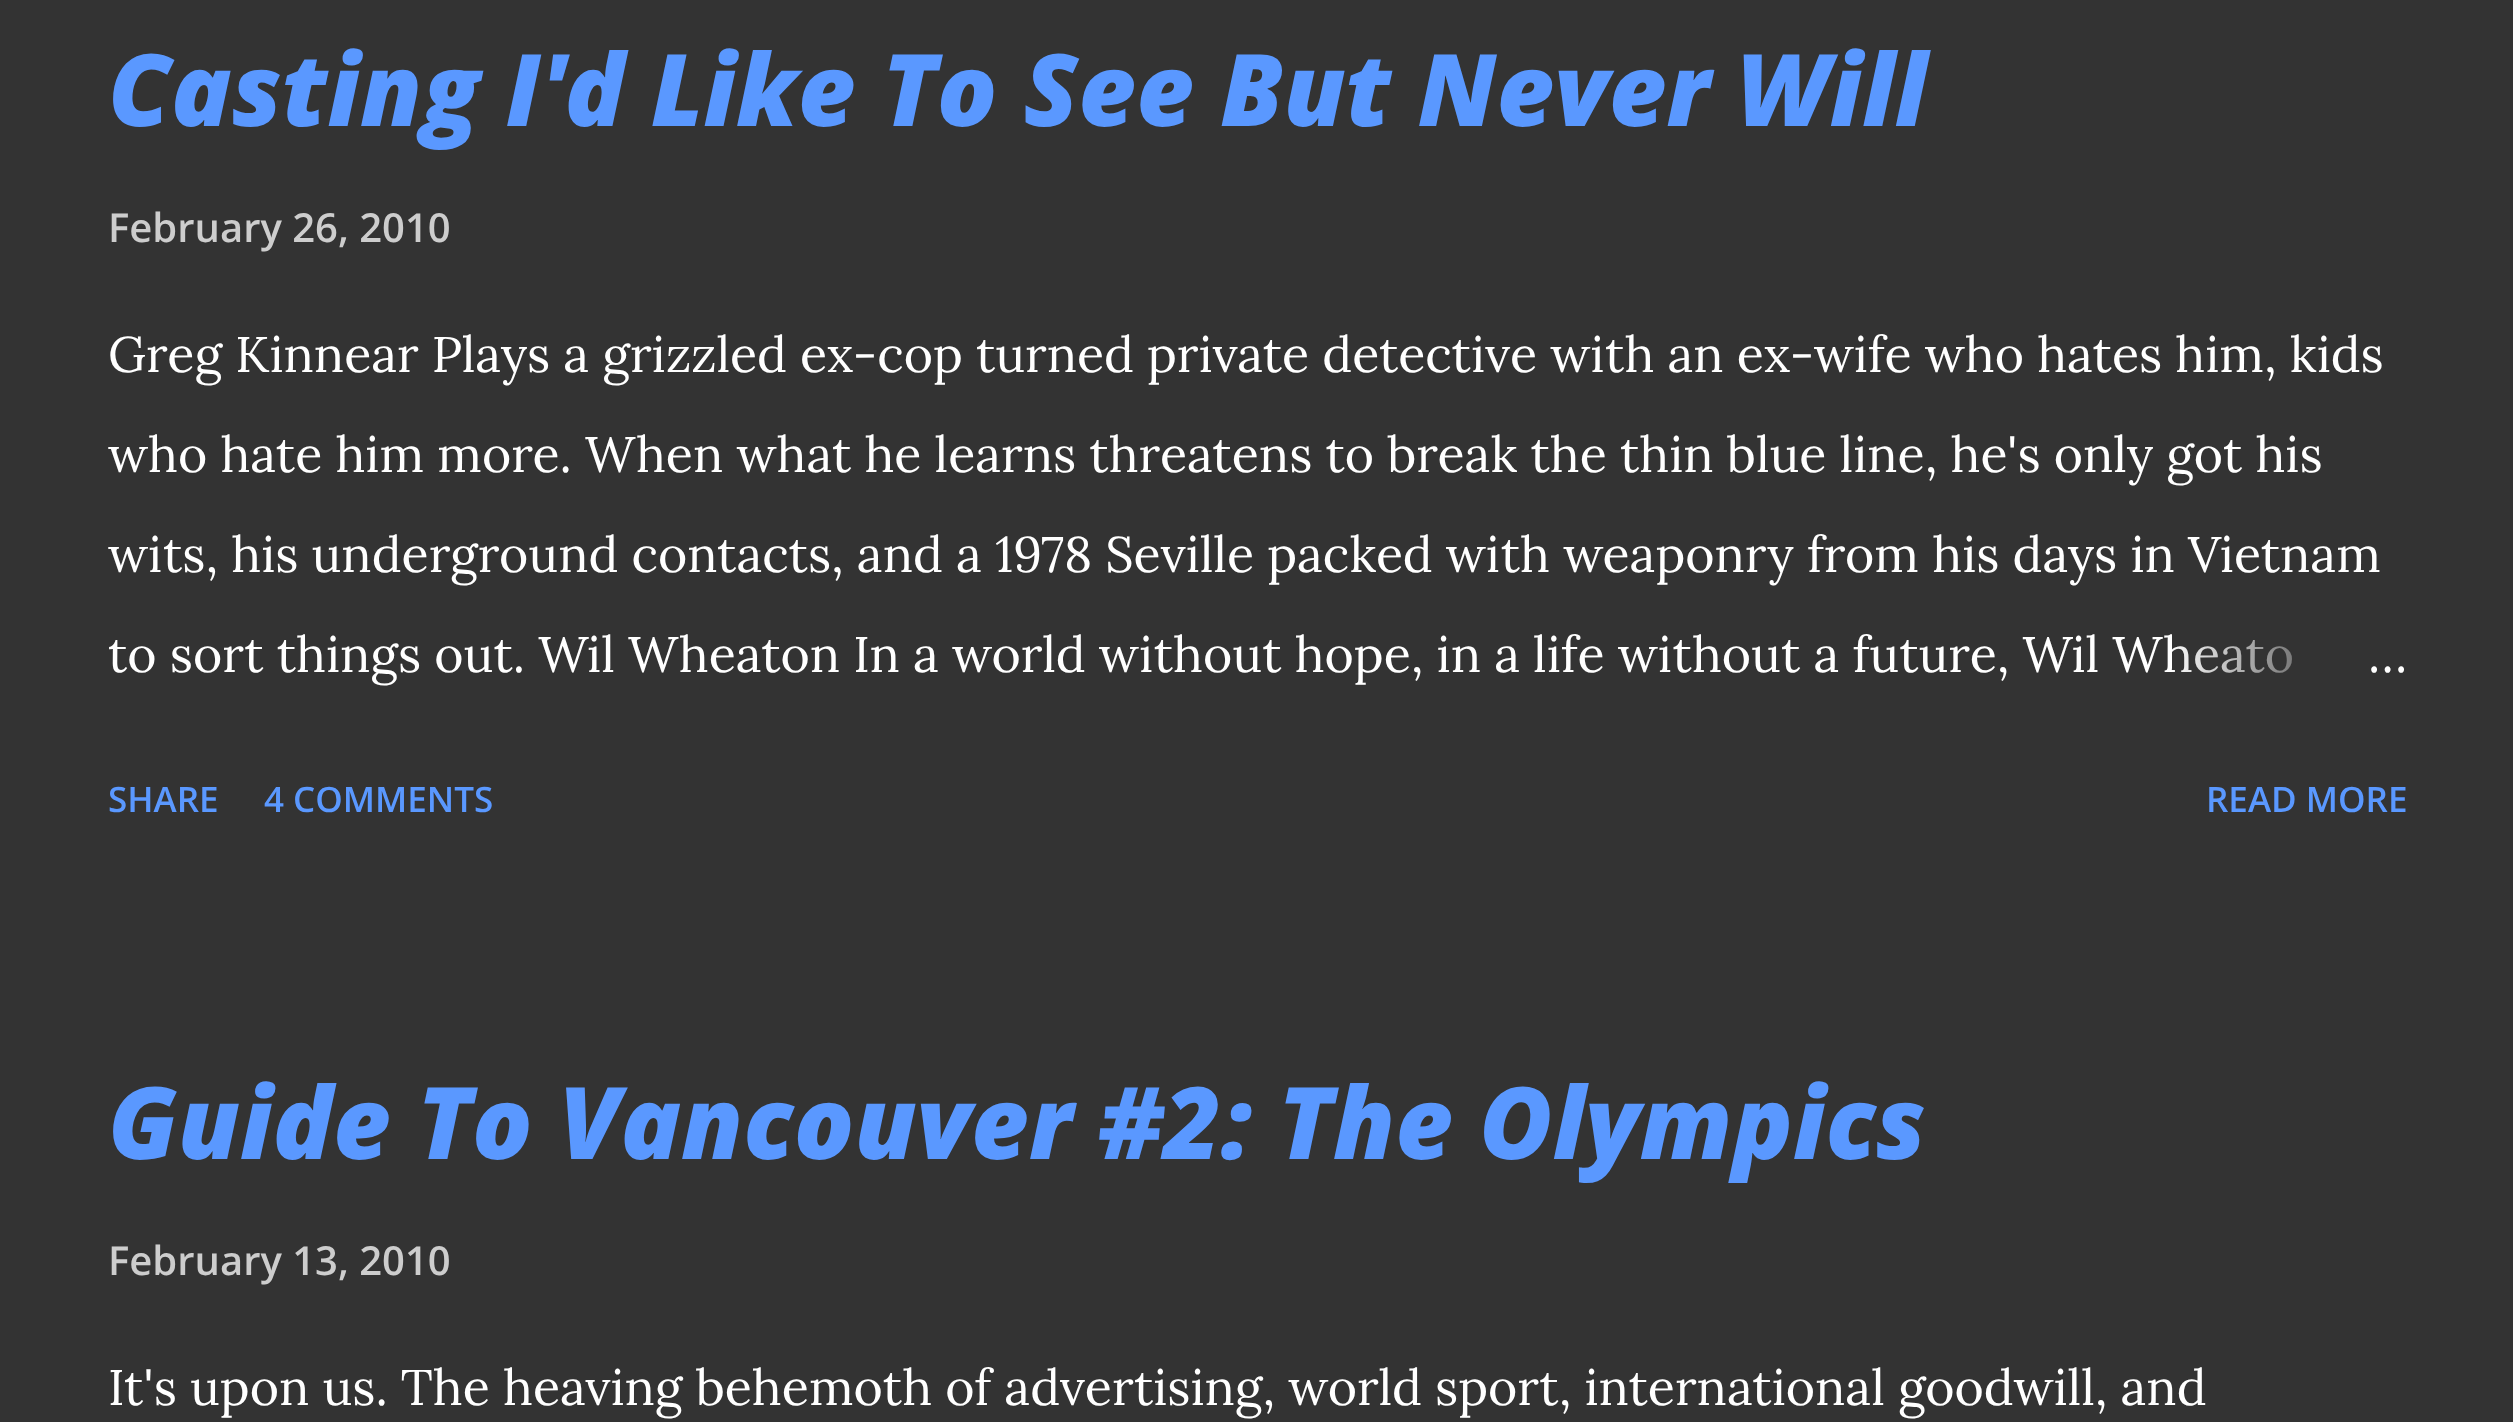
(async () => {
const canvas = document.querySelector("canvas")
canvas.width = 2513
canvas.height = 1422
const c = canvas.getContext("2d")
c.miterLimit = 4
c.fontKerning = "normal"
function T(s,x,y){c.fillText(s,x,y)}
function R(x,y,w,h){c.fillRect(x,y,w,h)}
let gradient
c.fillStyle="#333"
R(0,0,2513,1422)
c.font="italic 800 100px Open Sans"
c.fillStyle="#5a98ff"
T("Casting I'd Like To See But Never Will",108,126)
c.font="600 40px Open Sans"
c.fillStyle="#cdcdcd"
T("February 26, 2010",108,242)
c.font="50px Lora"
c.fillStyle="#fff"
T("Greg Kinnear Plays a grizzled ex-cop turned private detective with an ex-wife who hates him, kids",108,372)
T("who hate him more. When what he learns threatens to break the thin blue line, he's only got his",108,472)
T("wits, his underground contacts, and a 1978 Seville packed with weaponry from his days in Vietnam",108,572)
T("to sort things out. Wil Wheaton In a world without hope, in a life without a future, Wil Wheato",108,672)
gradient = c.createLinearGradient(2408,655,2168,655)
gradient.addColorStop(0,"#333")
gradient.addColorStop(.2,"#333")
gradient.addColorStop(1,"#33333300")
c.fillStyle = gradient
R(2172,640,120,33)
c.fillStyle="#fff"
T("…",2368,672)
c.font="600 35px Open Sans"
c.fillStyle="#5a98ff"
T("SHARE",108,812)
T("4 COMMENTS",264,812)
T("READ MORE",2206,812)
c.font="italic 800 100px Open Sans"
T("Guide To Vancouver #2: The Olympics",108,1159)
c.font="600 40px Open Sans"
c.fillStyle="#cdcdcd"
T("February 13, 2010",108,1275)
c.font="50px Lora"
c.fillStyle="#fff"
T("It's upon us. The heaving behemoth of advertising, world sport, international goodwill, and",108,1405)
})()
